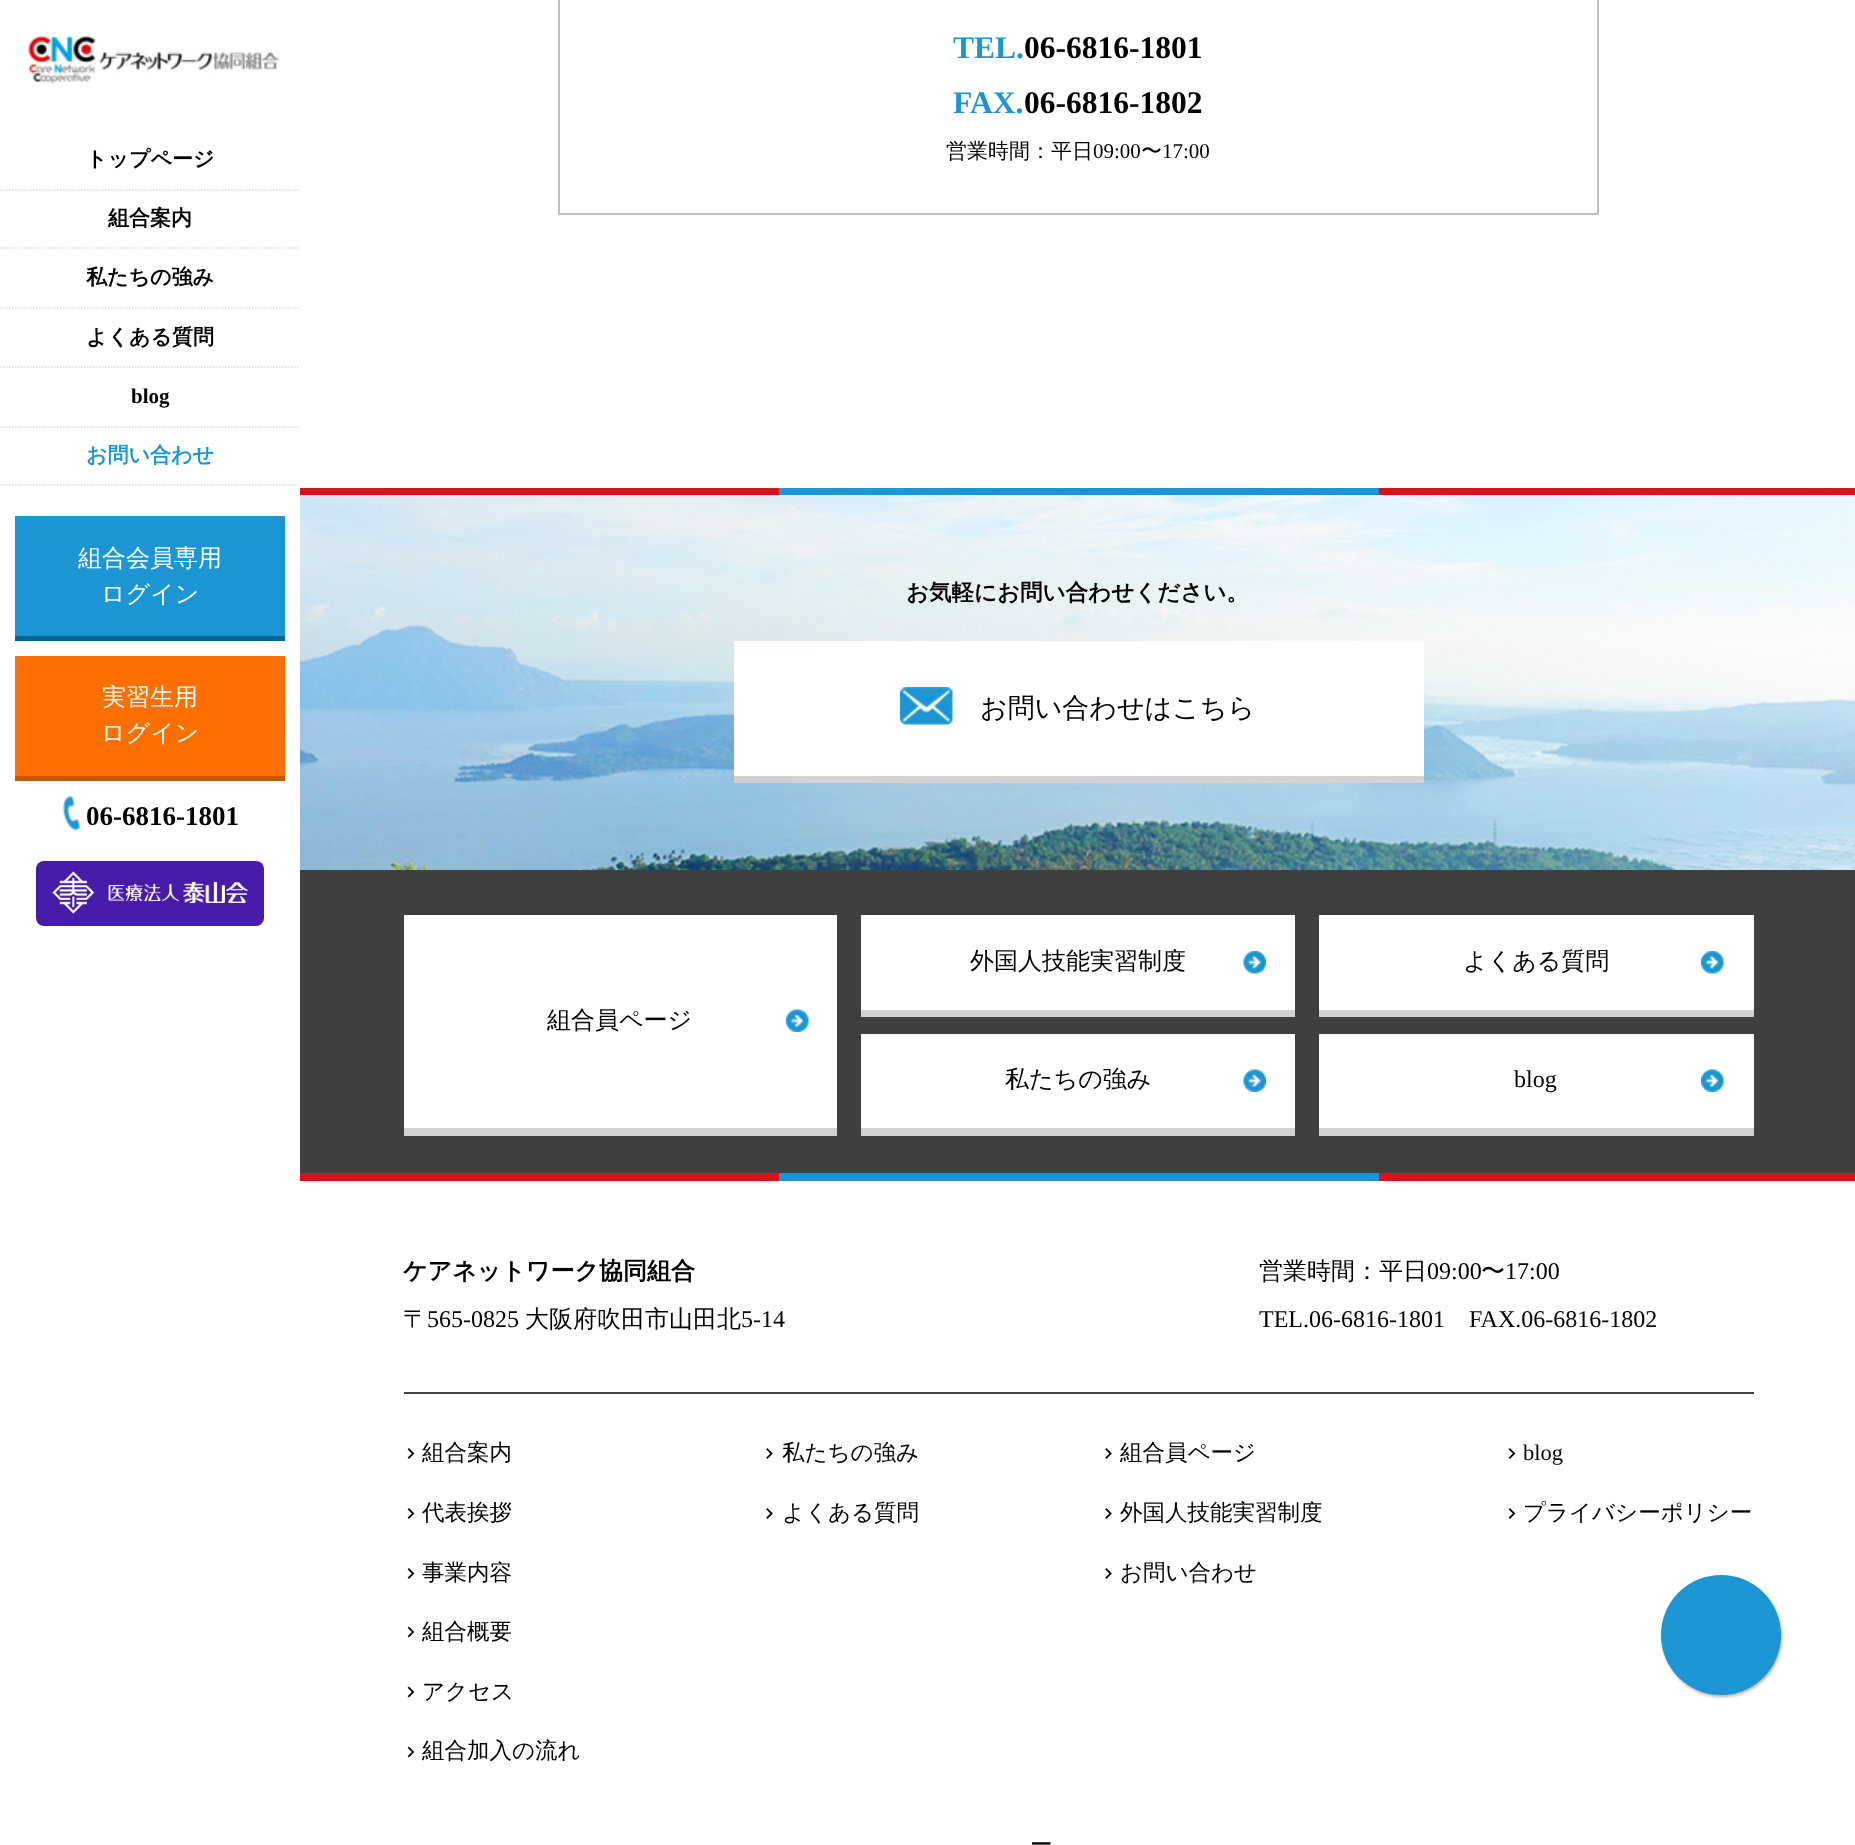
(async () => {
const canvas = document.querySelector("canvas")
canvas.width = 1855
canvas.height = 1845
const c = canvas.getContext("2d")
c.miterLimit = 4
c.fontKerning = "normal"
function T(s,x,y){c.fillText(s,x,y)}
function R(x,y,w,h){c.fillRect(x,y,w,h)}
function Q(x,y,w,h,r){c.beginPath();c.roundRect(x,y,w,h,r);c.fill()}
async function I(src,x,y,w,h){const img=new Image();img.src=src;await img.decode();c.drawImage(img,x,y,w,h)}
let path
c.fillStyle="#fff"
R(0,0,1855,1845)
await I("1.png",28,35,252,50)
path = new Path2D("M0 190h300")
c.strokeStyle="#dbdbdb"
c.lineWidth=1.5
c.setLineDash([1.5,1.5])
c.stroke(path)
c.font="bold 21px WenQuanYi Zen Hei"
c.fillStyle="#000"
T("トップページ",86,166)
path = new Path2D("M0 248h300")
c.stroke(path)
T("組合案内",108,225)
path = new Path2D("M0 308h300")
c.stroke(path)
T("私たちの強み",86,284)
path = new Path2D("M0 367h300")
c.stroke(path)
T("よくある質問",86,344)
path = new Path2D("M0 427h300")
c.stroke(path)
c.font="bold 21px Liberation Serif"
T("blog",131,403)
path = new Path2D("M0 485h300")
c.stroke(path)
c.font="bold 21px WenQuanYi Zen Hei"
c.fillStyle="#1b95d3"
T("お問い合わせ",86,462)
R(15,516,270,120)
c.fillStyle="#006497"
R(15,636,270,5)
c.font="500 24px WenQuanYi Zen Hei"
c.fillStyle="#fff"
T("組合会員専用",78,566)
T("ログイン",101,602)
c.fillStyle="#ff6f00"
R(15,656,270,120)
c.fillStyle="#c55600"
R(15,776,270,5)
c.fillStyle="#fff"
T("実習生用",102,705)
T("ログイン",101,741)
await I("2.png",62,795,19,36)
c.font="bold 27px Liberation Serif"
c.fillStyle="#000"
T("06-6816-1801",86,825)
c.fillStyle="#461ba8"
Q(36,861,228,65,8)
await I("3.png",52,871,196,43)
c.strokeStyle="#bfbfbf"
c.lineWidth=2
c.setLineDash([])
c.strokeRect(559,-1,1039,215)
c.font="bold 31.5px Liberation Serif"
c.fillStyle="#1b95d3"
T("TEL.",953,58)
c.fillStyle="#000"
T("06-6816-1801",1024,58)
c.fillStyle="#1b95d3"
T("FAX.",953,113)
c.fillStyle="#000"
T("06-6816-1802",1024,113)
c.font="500 21px WenQuanYi Zen Hei"
T("営業時間：平日",946,158)
c.font="21px Liberation Serif"
T("09:00",1093,158)
c.font="500 21px WenQuanYi Zen Hei"
T("〜",1141,158)
c.font="21px Liberation Serif"
T("17:00",1162,158)
c.fillStyle="#d9131a"
R(300,488,1555,7)
c.fillStyle="#1b95d3"
R(779,488,600,7)
await I("4.png",300,495,1555,375)
c.font="bold 22.5px WenQuanYi Zen Hei"
c.fillStyle="#000"
T("お気軽にお問い合わせください。",906,600)
c.fillStyle="#fff"
R(734,641,690,135)
c.fillStyle="#d2d2d2"
R(734,776,690,7)
await I("5.png",900,687,53,38)
c.font="500 27px WenQuanYi Zen Hei"
c.fillStyle="#000"
T("お問い合わせはこちら",980,717)
c.fillStyle="#3f3f3f"
R(300,870,1555,303)
c.fillStyle="#fff"
R(861,915,434,95)
await I("6.png",1243,951,23,23)
c.fillStyle="#d2d2d2"
R(861,1010,434,7)
c.font="500 24px WenQuanYi Zen Hei"
c.fillStyle="#000"
T("外国人技能実習制度",970,969)
c.fillStyle="#fff"
R(1319,915,435,95)
await I("7.png",1701,951,23,23)
c.fillStyle="#d2d2d2"
R(1319,1010,435,7)
c.fillStyle="#000"
T("よくある質問",1463,969)
c.fillStyle="#fff"
R(404,915,433,213)
await I("8.png",786,1009,23,23)
c.fillStyle="#d2d2d2"
R(404,1128,433,8)
c.fillStyle="#000"
T("組合員ページ",547,1028)
c.fillStyle="#fff"
R(861,1034,434,94)
await I("9.png",1243,1069,23,23)
c.fillStyle="#d2d2d2"
R(861,1128,434,8)
c.fillStyle="#000"
T("私たちの強み",1005,1087)
c.fillStyle="#fff"
R(1319,1034,435,94)
await I("8.png",1701,1069,23,23)
c.fillStyle="#d2d2d2"
R(1319,1128,435,8)
c.font="24px Liberation Serif"
c.fillStyle="#000"
T("blog",1514,1087)
c.fillStyle="#d9131a"
R(300,1173,1555,8)
c.fillStyle="#1b95d3"
R(779,1173,600,8)
c.fillStyle="#434343"
R(404,1392,1350,2)
c.font="bold 24px WenQuanYi Zen Hei"
c.fillStyle="#000"
T("ケアネットワーク協同組合",403,1279)
c.font="500 24px WenQuanYi Zen Hei"
T("〒",403,1327)
c.font="24px Liberation Serif"
T("565-0825",427,1327)
c.font="500 24px WenQuanYi Zen Hei"
T("大阪府吹田市山田北",525,1327)
c.font="24px Liberation Serif"
T("5-14",741,1327)
c.font="500 24px WenQuanYi Zen Hei"
T("営業時間：平日",1259,1279)
c.font="24px Liberation Serif"
T("09:00",1427,1279)
c.font="500 24px WenQuanYi Zen Hei"
T("〜",1481,1279)
c.font="24px Liberation Serif"
T("17:00",1505,1279)
T("TEL.06-6816-1801",1259,1327)
T("FAX.06-6816-1802",1469,1327)
await I("10.png",407,1448,8,11)
c.font="500 22.5px WenQuanYi Zen Hei"
T("組合案内",422,1460)
await I("10.png",407,1508,8,11)
T("代表挨拶",422,1520)
await I("10.png",407,1568,8,11)
T("事業内容",422,1580)
await I("11.png",407,1626,8,12)
T("組合概要",422,1639)
await I("11.png",407,1686,8,12)
T("アクセス",422,1699)
await I("11.png",407,1746,8,12)
T("組合加入の流れ",422,1758)
await I("12.png",766,1448,7,11)
T("私たちの強み",782,1460)
await I("12.png",766,1508,7,11)
T("よくある質問",782,1520)
await I("12.png",1105,1448,7,11)
T("組合員ページ",1120,1460)
await I("12.png",1105,1508,7,11)
T("外国人技能実習制度",1120,1520)
await I("12.png",1105,1568,7,11)
T("お問い合わせ",1120,1580)
await I("10.png",1508,1448,8,11)
c.font="22.5px Liberation Serif"
T("blog",1523,1460)
await I("10.png",1508,1508,8,11)
c.font="500 22.5px WenQuanYi Zen Hei"
T("プライバシーポリシー",1523,1520)
T("ー",1030,1852)
c.fillStyle="#0000004d"
c.filter="blur(1.5px)"
c.beginPath()
c.roundRect(1662,1577,120,120,60)
c.fill()
c.filter="none"
c.fillStyle="#1b95d3"
c.beginPath()
c.arc(1721,1635,60,0,7)
c.fill()
})()
